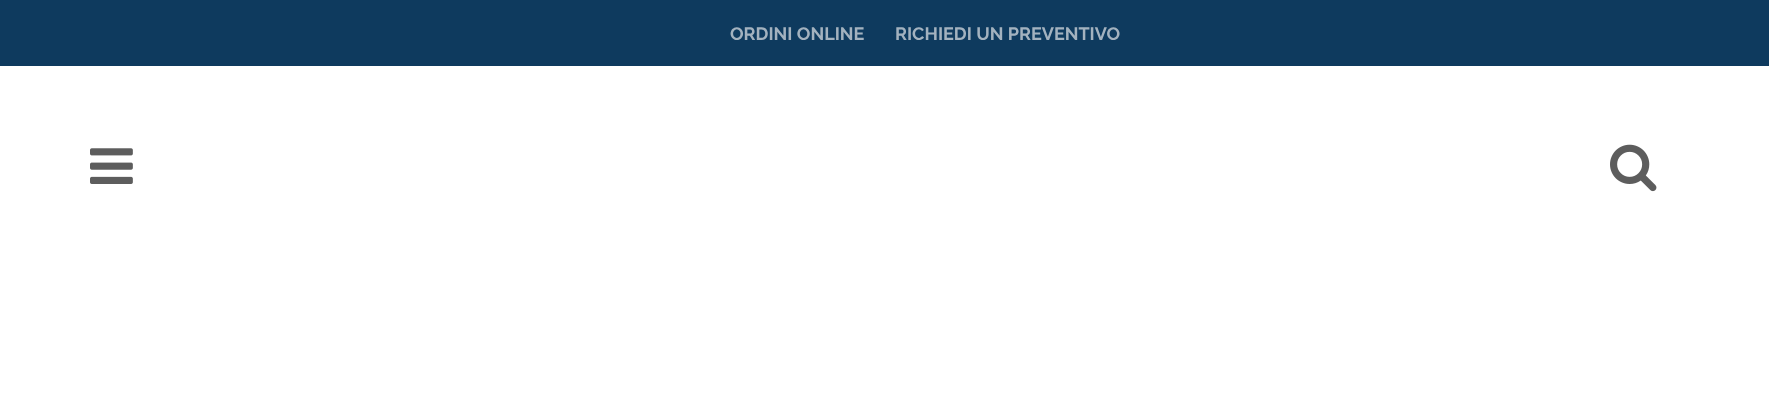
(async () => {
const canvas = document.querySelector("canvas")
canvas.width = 1769
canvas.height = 415
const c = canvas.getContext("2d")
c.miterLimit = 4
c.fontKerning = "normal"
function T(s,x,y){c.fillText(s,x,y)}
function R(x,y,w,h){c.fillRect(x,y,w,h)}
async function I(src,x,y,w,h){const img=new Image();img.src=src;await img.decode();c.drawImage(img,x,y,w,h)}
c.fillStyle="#fff"
R(0,0,1769,415)
c.fillStyle="#0e3a5e"
R(0,0,1769,66)
c.font="bold 18px Raleway"
c.fillStyle="#a3b2bf"
T("ORDINI ONLINE",730,40)
T("RICHIEDI UN PREVENTIVO",895,40)
await I("1.png",90,148,43,36)
await I("2.png",1610,144,47,48)
})()
